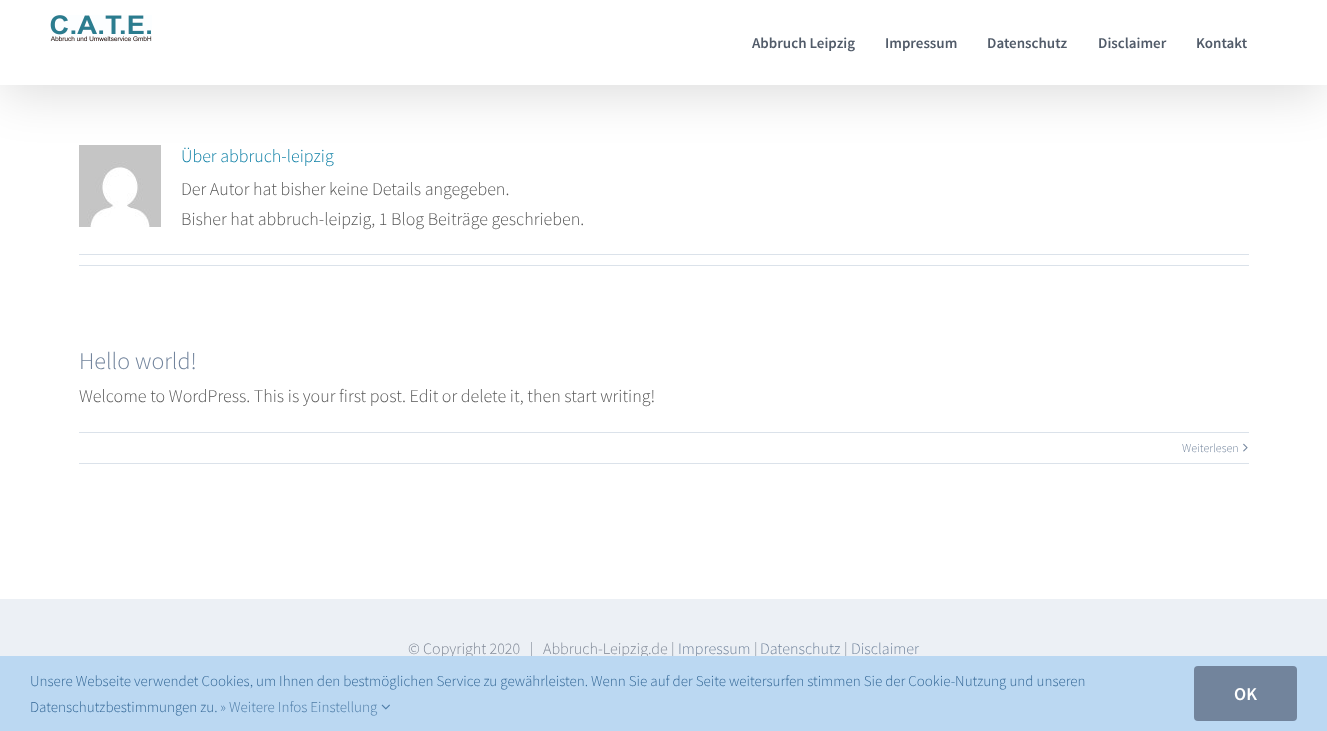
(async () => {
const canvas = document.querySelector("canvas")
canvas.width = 1327
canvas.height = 731
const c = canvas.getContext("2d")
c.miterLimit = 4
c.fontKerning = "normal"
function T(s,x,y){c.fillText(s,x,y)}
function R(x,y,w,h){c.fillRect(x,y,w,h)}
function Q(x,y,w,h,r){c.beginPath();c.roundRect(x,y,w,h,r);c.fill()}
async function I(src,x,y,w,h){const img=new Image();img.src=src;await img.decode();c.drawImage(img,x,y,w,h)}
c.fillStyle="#ecf0f5"
R(0,0,1327,731)
c.fillStyle="#fff"
R(0,85,1327,514)
await I("2.png",79,145,82,82)
c.fillStyle="#00000024"
c.filter="blur(25px)"
c.beginPath()
c.rect(2,8,1323,85)
c.fill()
c.filter="none"
c.fillStyle="#fff"
R(0,0,1327,85)
await I("1.png",50,15,102,27)
c.font="600 15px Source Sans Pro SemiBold"
c.fillStyle="#515b69"
T("Abbruch Leipzig",752,48)
T("Impressum",885,48)
T("Datenschutz",987,48)
T("Disclaimer",1098,48)
T("Kontakt",1196,48)
c.font="300 18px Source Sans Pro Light"
c.fillStyle="#0c7fa5"
T("Über abbruch-leipzig",181,162)
c.fillStyle="#565656"
T("Der Autor hat bisher keine Details angegeben.",181,195)
T("Bisher hat abbruch-leipzig, 1 Blog Beiträge geschrieben.",181,225)
c.fillStyle="#dbe2ea"
R(79,254,1170,1)
R(79,265,1170,1)
c.font="300 24px Source Sans Pro Light"
c.fillStyle="#72849c"
T("Hello world!",79,369)
c.font="300 18px Source Sans Pro Light"
c.fillStyle="#565656"
T("Welcome to WordPress. This is your first post. Edit or delete it, then start writing!",79,402)
c.fillStyle="#dbe2ea"
R(79,432,1170,1)
R(79,463,1170,1)
c.font="300 12px Source Sans Pro Light"
c.fillStyle="#72849c"
T("Weiterlesen",1182,452)
await I("3.png",1243,443,5,9)
c.font="300 16px Source Sans Pro Light"
c.fillStyle="#7f8795"
T("© Copyright 2020   |   Abbruch-Leipzig.de |",408,654)
c.fillStyle="#72849c"
T("Impressum",678,654)
c.fillStyle="#7f8795"
T("|",754,654)
c.fillStyle="#72849c"
T("Datenschutz",760,654)
c.fillStyle="#7f8795"
T("|",844,654)
c.fillStyle="#72849c"
T("Disclaimer",851,654)
c.fillStyle="#bbd8f2"
R(0,656,1327,75)
c.font="300 15px Source Sans Pro Light"
c.fillStyle="#336796"
T("Unsere Webseite verwendet Cookies, um Ihnen den bestmöglichen Service zu gewährleisten. Wenn Sie auf der Seite weitersurfen stimmen Sie der Cookie-Nutzung und unseren",30,686)
T("Datenschutzbestimmungen zu.",30,712)
c.fillStyle="#4d7ca7"
T("» Weitere Infos Einstellung",220,712)
await I("4.png",381,704,9,6)
c.fillStyle="#72849c"
Q(1194,666,103,55,4)
c.font="600 18px Source Sans Pro SemiBold"
c.fillStyle="#fff"
T("OK",1234,700)
})()
